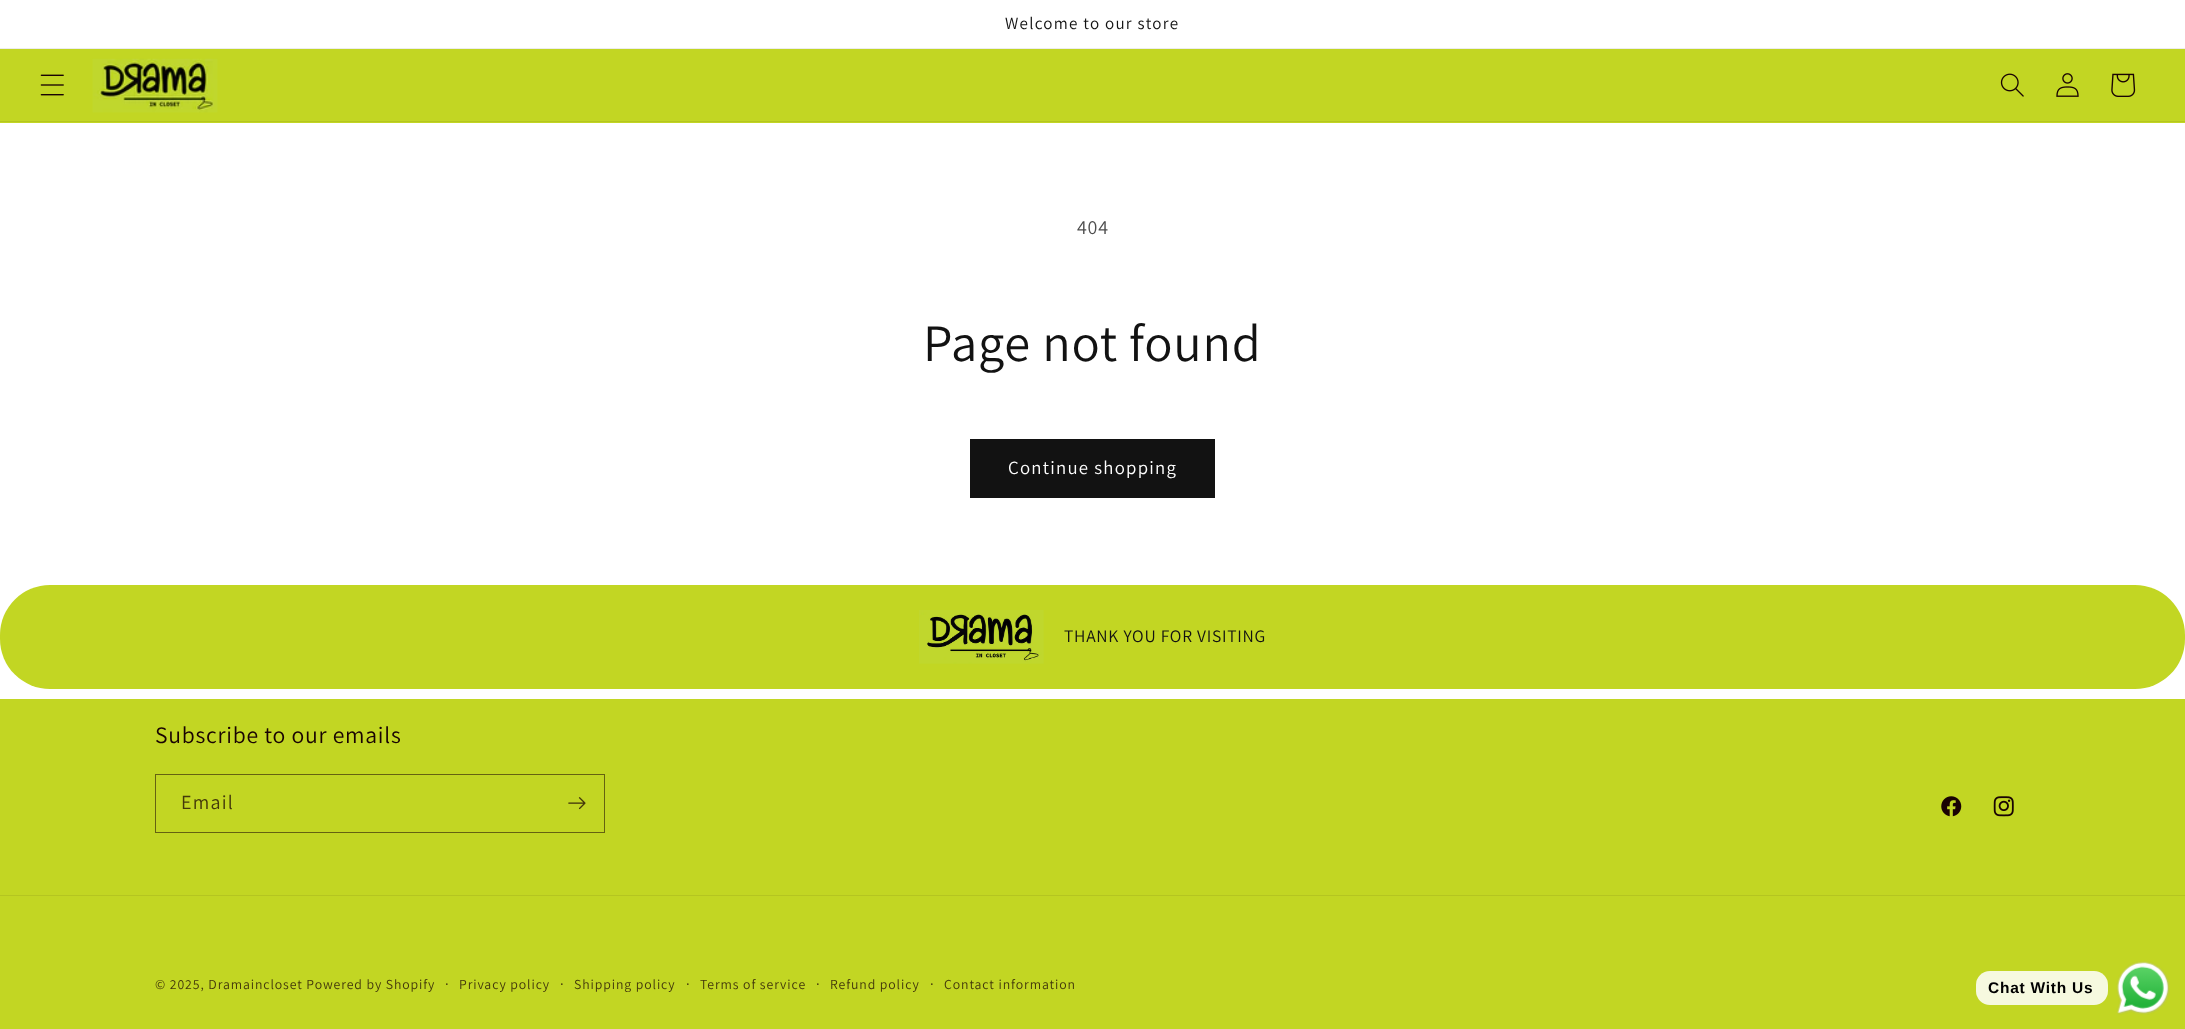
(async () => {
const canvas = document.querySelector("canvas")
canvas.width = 2185
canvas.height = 1029
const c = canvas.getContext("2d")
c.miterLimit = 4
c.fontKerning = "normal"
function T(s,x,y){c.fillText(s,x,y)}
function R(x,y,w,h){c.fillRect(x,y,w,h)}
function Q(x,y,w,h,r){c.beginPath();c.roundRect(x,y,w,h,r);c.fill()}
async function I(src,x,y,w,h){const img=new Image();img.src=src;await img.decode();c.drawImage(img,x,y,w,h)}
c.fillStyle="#fff"
R(0,0,2185,1029)
c.fillStyle="#ececec"
R(0,48,2185,1)
c.letterSpacing="1.25px"
c.font="17px Assistant"
c.fillStyle="#121212"
T("Welcome to our store",1005,29)
c.fillStyle="#c2d623"
R(0,49,2185,74)
c.fillStyle="#b4c520"
R(0,121,2185,1)
await I("1.png",40,74,24,22)
await I("2.png",92,58,126,55)
await I("3.png",2000,73,24,24)
await I("4.png",2056,73,23,24)
await I("5.png",2111,73,25,24)
c.letterSpacing="0.75px"
c.font="20px Assistant"
c.fillStyle="#4d4d4d"
T("404",1077,234)
c.font="52.5px Assistant"
c.fillStyle="#121212"
T("Page not found",923,361)
R(970,439,245,59)
c.letterSpacing="1.25px"
c.font="18.75px Assistant"
c.fillStyle="#fff"
T("Continue shopping",1008,474)
c.fillStyle="#c2d623"
Q(0,585,2185,104,50)
await I("6.png",919,610,125,54)
c.letterSpacing="0.75px"
c.font="17.5px Assistant"
c.fillStyle="#121212"
T("THANK YOU FOR VISITING",1064,642)
c.fillStyle="#c2d623"
R(0,699,2185,330)
c.font="23.6px Assistant"
c.fillStyle="#190303"
T("Subscribe to our emails",155,743)
c.strokeStyle="#656211"
c.strokeRect(155.5,774.5,449,58)
c.letterSpacing="1.25px"
c.font="20px Assistant"
c.fillStyle="#43380b"
T("Email",181,809)
await I("7.png",568,797,18,13)
await I("8.png",1941,796,21,21)
await I("9.png",1993,796,21,21)
c.fillStyle="#b4c520"
R(0,895,2185,1)
c.letterSpacing="0.9px"
c.font="13.75px Assistant"
c.fillStyle="#43380b"
T("© 2025, Dramaincloset Powered by Shopify",155,989)
c.font="15px Assistant"
T("·",445,989)
c.font="13.75px Assistant"
T("Privacy policy",459,989)
c.font="15px Assistant"
T("·",560,989)
c.font="13.75px Assistant"
T("Shipping policy",574,989)
c.font="15px Assistant"
T("·",686,989)
c.font="13.75px Assistant"
T("Terms of service",700,989)
c.font="15px Assistant"
T("·",816,989)
c.font="13.75px Assistant"
T("Refund policy",830,989)
c.font="15px Assistant"
T("·",930,989)
c.font="13.75px Assistant"
T("Contact information",944,989)
c.fillStyle="#f6f9df"
Q(1976,971,132,34,14)
c.letterSpacing="0.75px"
c.font="bold 15.5px Liberation Sans"
c.fillStyle="#000"
T("Chat With Us",1988,993)
await I("10.png",2116,961,54,54)
})()
